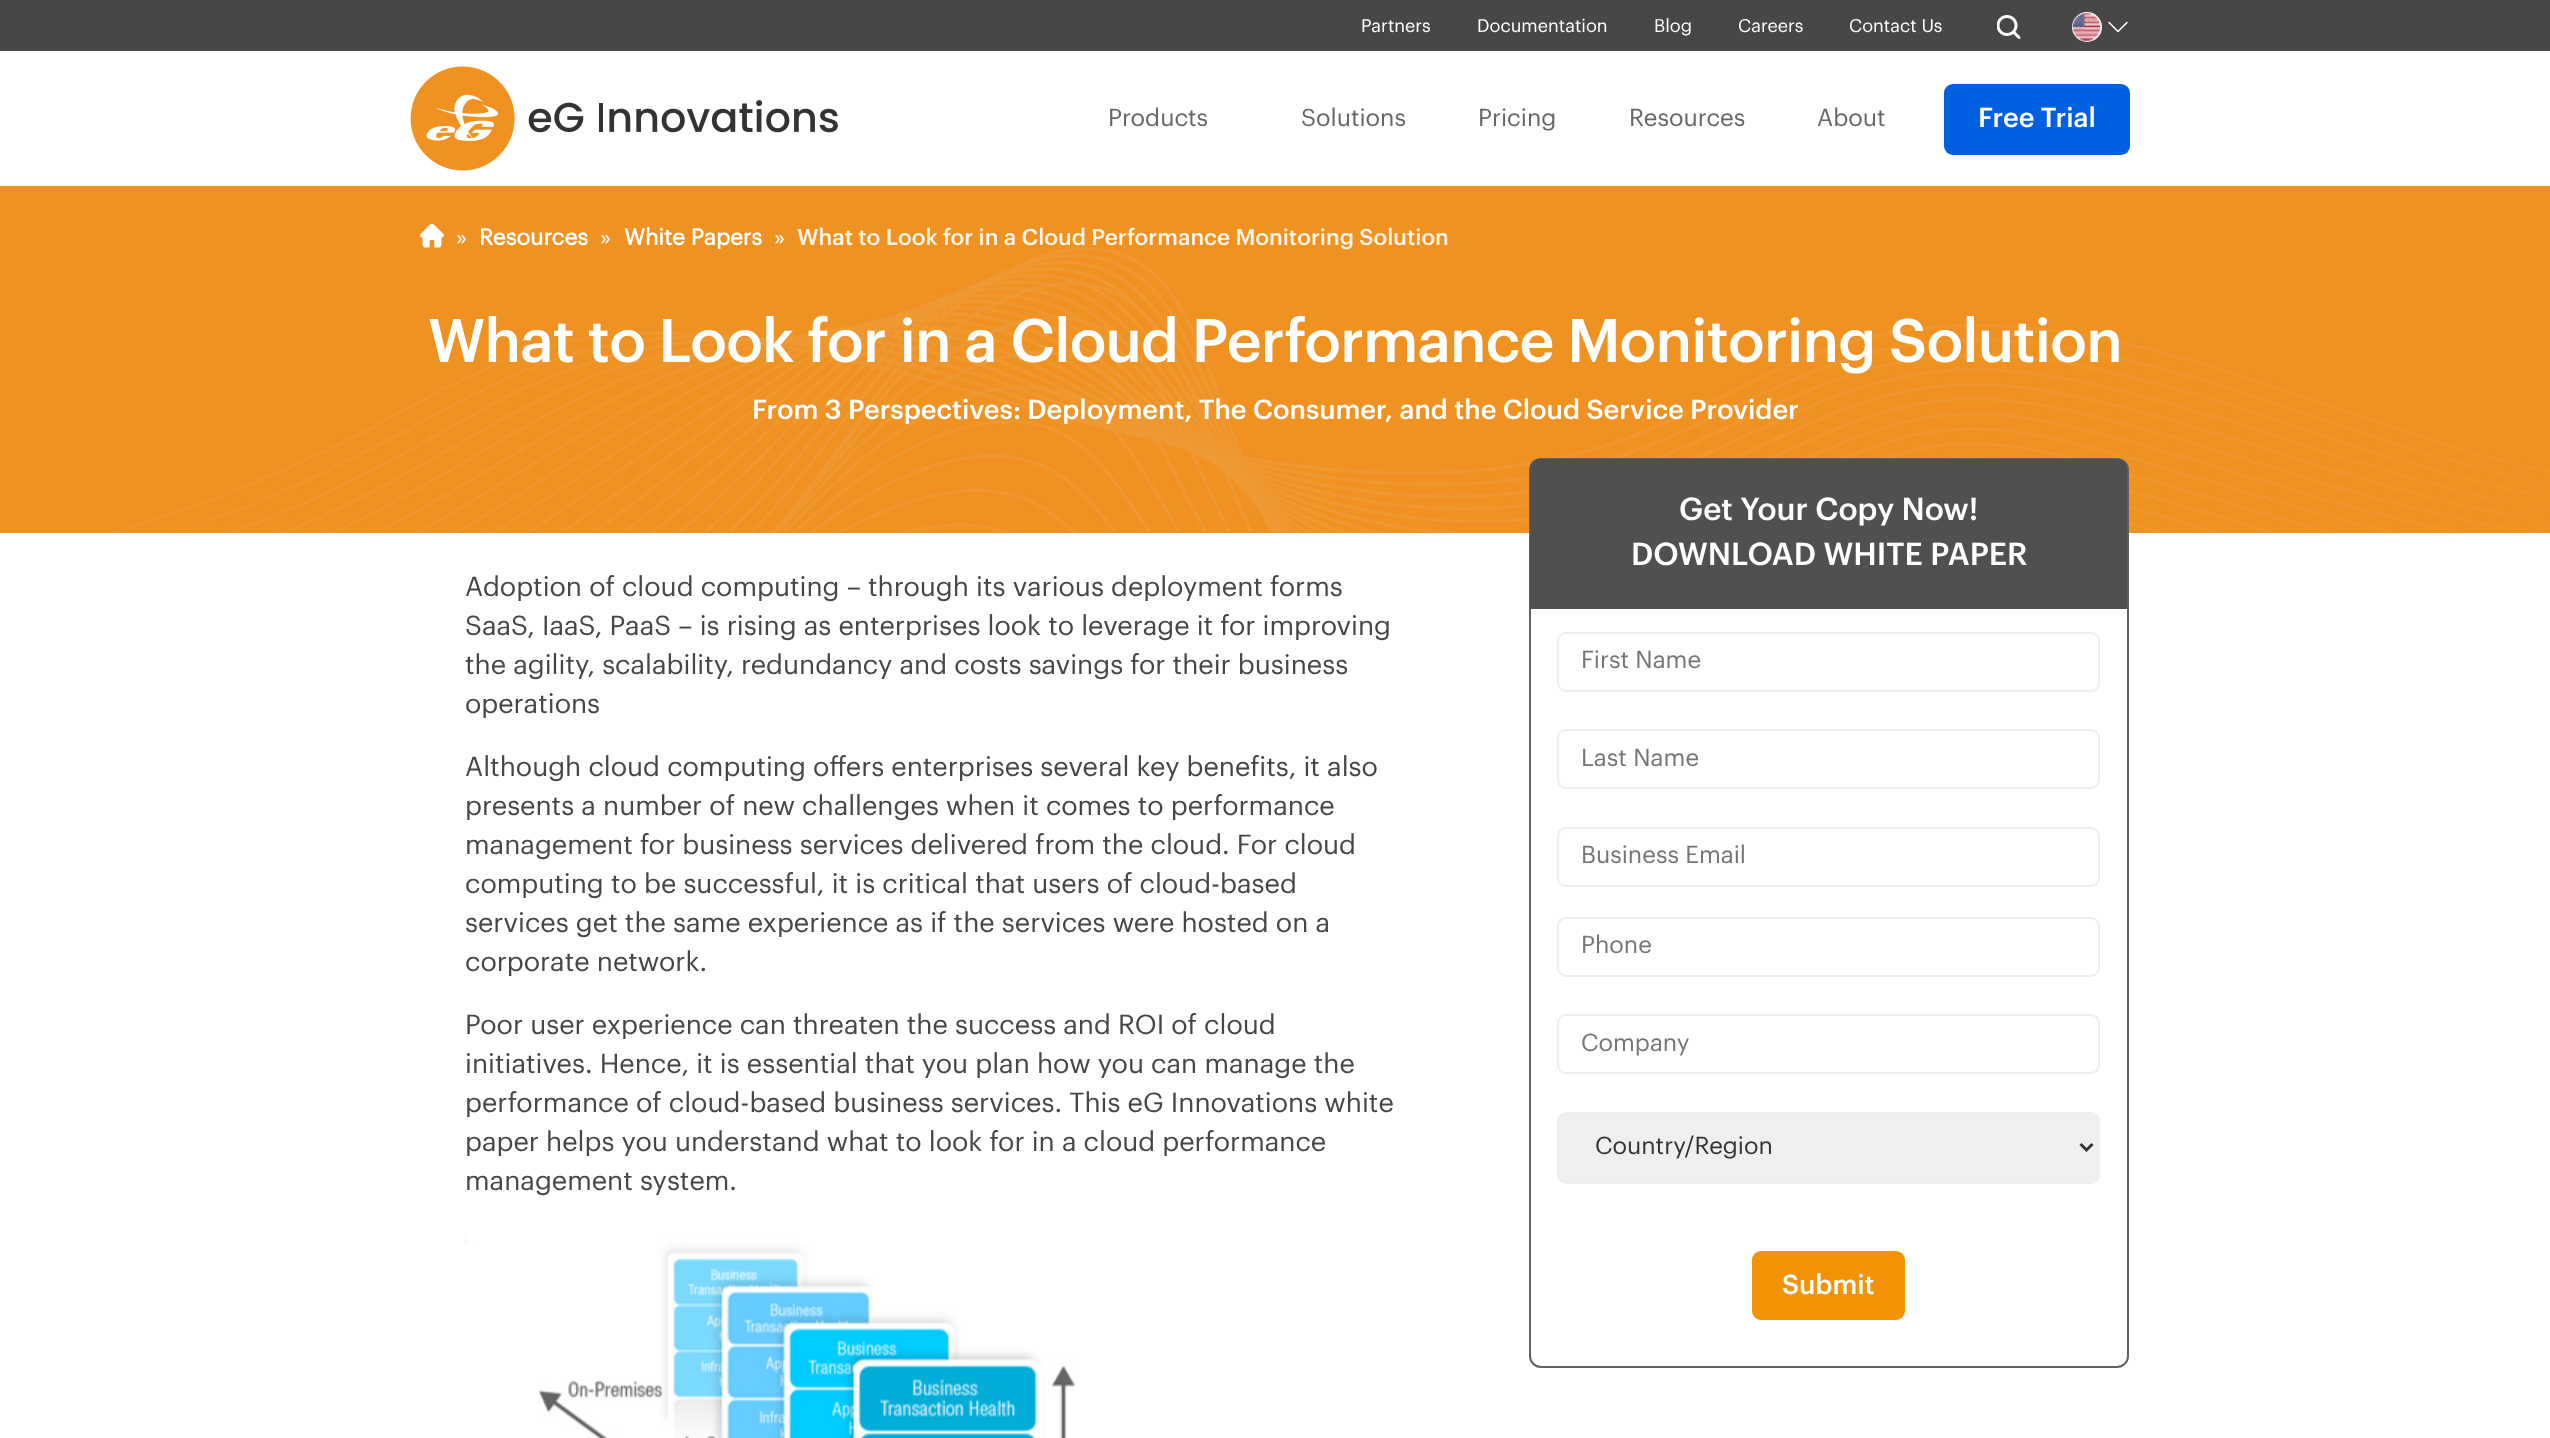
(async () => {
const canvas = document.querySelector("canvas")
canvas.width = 2550
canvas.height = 1438
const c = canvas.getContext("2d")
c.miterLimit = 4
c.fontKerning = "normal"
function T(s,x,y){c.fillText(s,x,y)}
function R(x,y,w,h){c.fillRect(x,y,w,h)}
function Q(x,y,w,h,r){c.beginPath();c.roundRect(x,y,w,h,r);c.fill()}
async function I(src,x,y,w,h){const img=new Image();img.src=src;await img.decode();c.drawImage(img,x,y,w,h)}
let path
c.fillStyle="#fff"
R(0,0,2550,1438)
c.fillStyle="#474747"
R(0,0,2550,51)
c.font="18px Graphik"
c.fillStyle="#fff"
T("Partners",1361,32)
T("Documentation",1477,32)
T("Blog",1654,32)
T("Careers",1738,32)
T("Contact Us",1849,32)
await I("1.png",1997,15,24,24)
c.beginPath()
c.arc(2087,27,15,0,7)
c.fill()
await I("2.png",2072,13,29,28)
await I("3.png",2108,21,20,12)
await I("4.png",410,66,105,105)
await I("5.png",528,100,310,33)
c.font="24px Graphik"
c.fillStyle="#666"
T("Products",1108,126)
T("Solutions",1301,126)
T("Pricing",1478,126)
T("Resources",1629,126)
T("About",1817,126)
c.fillStyle="#0160e0"
Q(1944,84,186,71,9)
c.font="500 27px Graphik"
c.fillStyle="#fff"
T("Free Trial",1978,127)
c.fillStyle="#f09222"
R(0,186,2550,347)
await I("6.png",111,247,2439,286)
await I("7.png",420,224,24,24)
c.font="22.5px Graphik"
c.fillStyle="#fff"
T("»",456,245)
c.font="bold 22.5px Graphik"
T("Resources",479,245)
c.font="22.5px Graphik"
T("»",600,245)
c.font="bold 22.5px Graphik"
T("White Papers",624,245)
c.font="22.5px Graphik"
T("»",774,245)
c.font="500 22.5px Graphik"
c.fillStyle="#fef4e9"
T("What to Look for in a Cloud Performance Monitoring Solution",797,245)
c.letterSpacing="-0.75px"
c.font="500 60px Graphik"
c.fillStyle="#fff"
T("What to Look for in a Cloud Performance Monitoring Solution",428,362)
c.letterSpacing="0px"
c.font="500 27px Graphik"
T("From 3 Perspectives: Deployment, The Consumer, and the Cloud Service Provider",752,419)
c.font="27px Graphik"
c.fillStyle="#464646"
T("Adoption of cloud computing – through its various deployment forms",465,596)
T("SaaS, IaaS, PaaS – is rising as enterprises look to leverage it for improving",465,635)
T("the agility, scalability, redundancy and costs savings for their business",465,674)
T("operations",465,713)
T("Although cloud computing offers enterprises several key benefits, it also",465,776)
T("presents a number of new challenges when it comes to performance",465,815)
T("management for business services delivered from the cloud. For cloud",465,854)
T("computing to be successful, it is critical that users of cloud-based",465,893)
T("services get the same experience as if the services were hosted on a",465,932)
T("corporate network.",465,971)
T("Poor user experience can threaten the success and ROI of cloud",465,1034)
T("initiatives. Hence, it is essential that you plan how you can manage the",465,1073)
T("performance of cloud-based business services. This eG Innovations white",465,1112)
T("paper helps you understand what to look for in a cloud performance",465,1151)
T("management system.",465,1190)
await I("8.png",465,1233,611,205)
c.fillStyle="#fff"
c.beginPath()
c.roundRect(1530,459,598,908,11)
c.fill()
c.strokeStyle="#616161"
c.lineWidth=2
c.stroke()
c.fillStyle="#505050"
c.beginPath()
c.roundRect(1530,459,597,150,[9,9,0,0])
c.fill()
c.font="500 31.25px Graphik"
c.fillStyle="#fff"
T("Get Your Copy Now!",1679,520)
T("DOWNLOAD WHITE PAPER",1631,565)
c.beginPath()
c.roundRect(1558,633,541,58,8)
c.strokeStyle="#eee"
c.stroke()
c.font="24px Graphik"
c.fillStyle="#757575"
T("First Name",1581,668)
c.beginPath()
c.roundRect(1558,730,541,58,8)
c.stroke()
T("Last Name",1581,766)
c.beginPath()
c.roundRect(1558,828,541,58,8)
c.stroke()
T("Business Email",1581,863)
c.beginPath()
c.roundRect(1558,918,541,58,8)
c.stroke()
T("Phone",1581,953)
c.beginPath()
c.roundRect(1558,1015,541,58,8)
c.stroke()
T("Company",1581,1051)
c.fillStyle="#efefef"
c.beginPath()
c.roundRect(1558,1113,541,70,8)
c.fill()
c.stroke()
path = new Path2D("M2080.5 1144l6 6l6-6")
c.strokeStyle="#333"
c.lineWidth=3
c.stroke(path)
c.fillStyle="#333"
T("Country/Region",1595,1154)
c.fillStyle="#f29305"
Q(1752,1251,153,69,9)
c.font="500 27px Graphik"
c.fillStyle="#fff"
T("Submit",1782,1294)
})()
